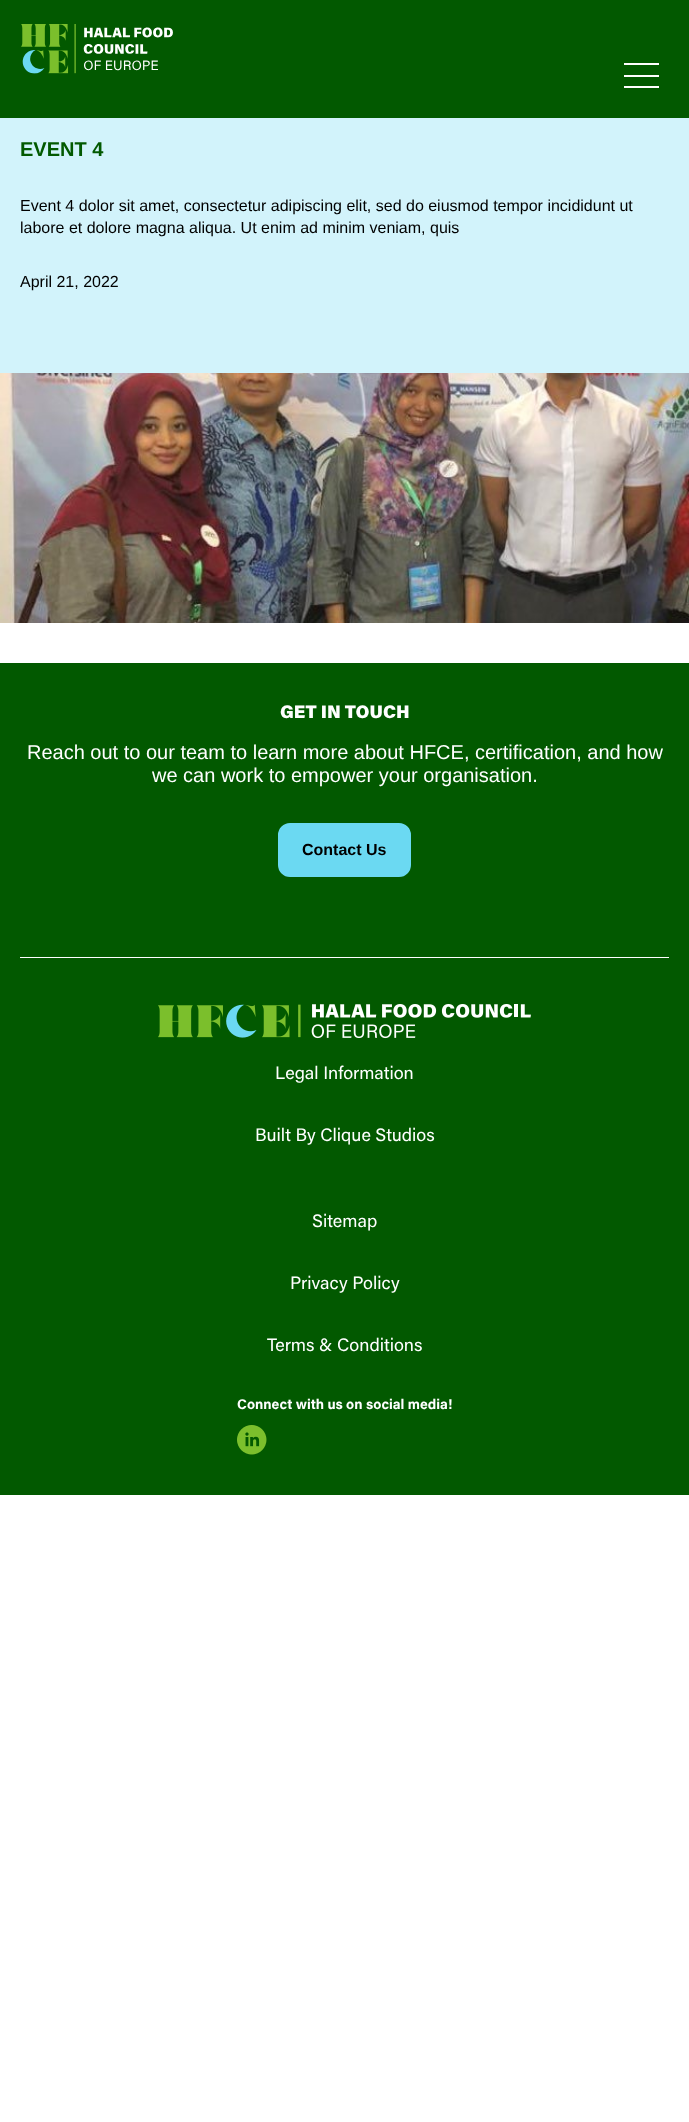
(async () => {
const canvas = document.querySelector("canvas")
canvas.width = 689
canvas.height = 2122
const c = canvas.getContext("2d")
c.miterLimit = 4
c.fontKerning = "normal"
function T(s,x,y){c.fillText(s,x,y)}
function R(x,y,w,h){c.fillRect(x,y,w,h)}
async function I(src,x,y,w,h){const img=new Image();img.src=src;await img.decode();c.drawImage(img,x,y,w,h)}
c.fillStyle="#fff"
R(0,0,689,2122)
c.fillStyle="#025900"
R(0,0,689,118)
await I("1.png",21,24,152,50)
c.fillStyle="#fff"
R(624,63,35,2)
R(624,75,35,2)
R(624,86,35,2)
c.fillStyle="#d2f3fb"
R(0,118,689,255)
c.font="bold 20px Liberation Sans"
c.fillStyle="#025900"
T("EVENT 4",20,156)
c.font="16px Liberation Sans"
c.fillStyle="#000"
T("Event 4 dolor sit amet, consectetur adipiscing elit, sed do eiusmod tempor incididunt ut",20,211)
T("labore et dolore magna aliqua. Ut enim ad minim veniam, quis",20,233)
T("April 21, 2022",20,287)
await I("2.png",0,373,689,250)
c.fillStyle="#025900"
R(0,663,689,832)
c.font="900 18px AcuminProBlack"
c.fillStyle="#fff"
T("GET IN TOUCH",280,718)
c.font="20px Liberation Sans"
T("Reach out to our team to learn more about HFCE, certification, and how",27,759)
T("we can work to empower your organisation.",152,782)
c.fillStyle="#6bd9f2"
c.beginPath()
c.roundRect(280,825,129,50,10)
c.fill()
c.strokeStyle="#6bd9f2"
c.lineWidth=4
c.stroke()
c.font="bold 16px Liberation Sans"
c.fillStyle="#000"
T("Contact Us",302,855)
c.fillStyle="#fff"
R(20,957,649,1)
await I("3.png",158,1004,373,35)
c.font="18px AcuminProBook"
T("Legal Information",275,1079)
T("Built By Clique Studios",255,1141)
T("Sitemap",312,1227)
T("Privacy Policy",290,1289)
T("Terms & Conditions",267,1351)
c.font="bold 14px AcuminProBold"
T("Connect with us on social media!",237,1409)
await I("4.png",237,1425,30,30)
})()
